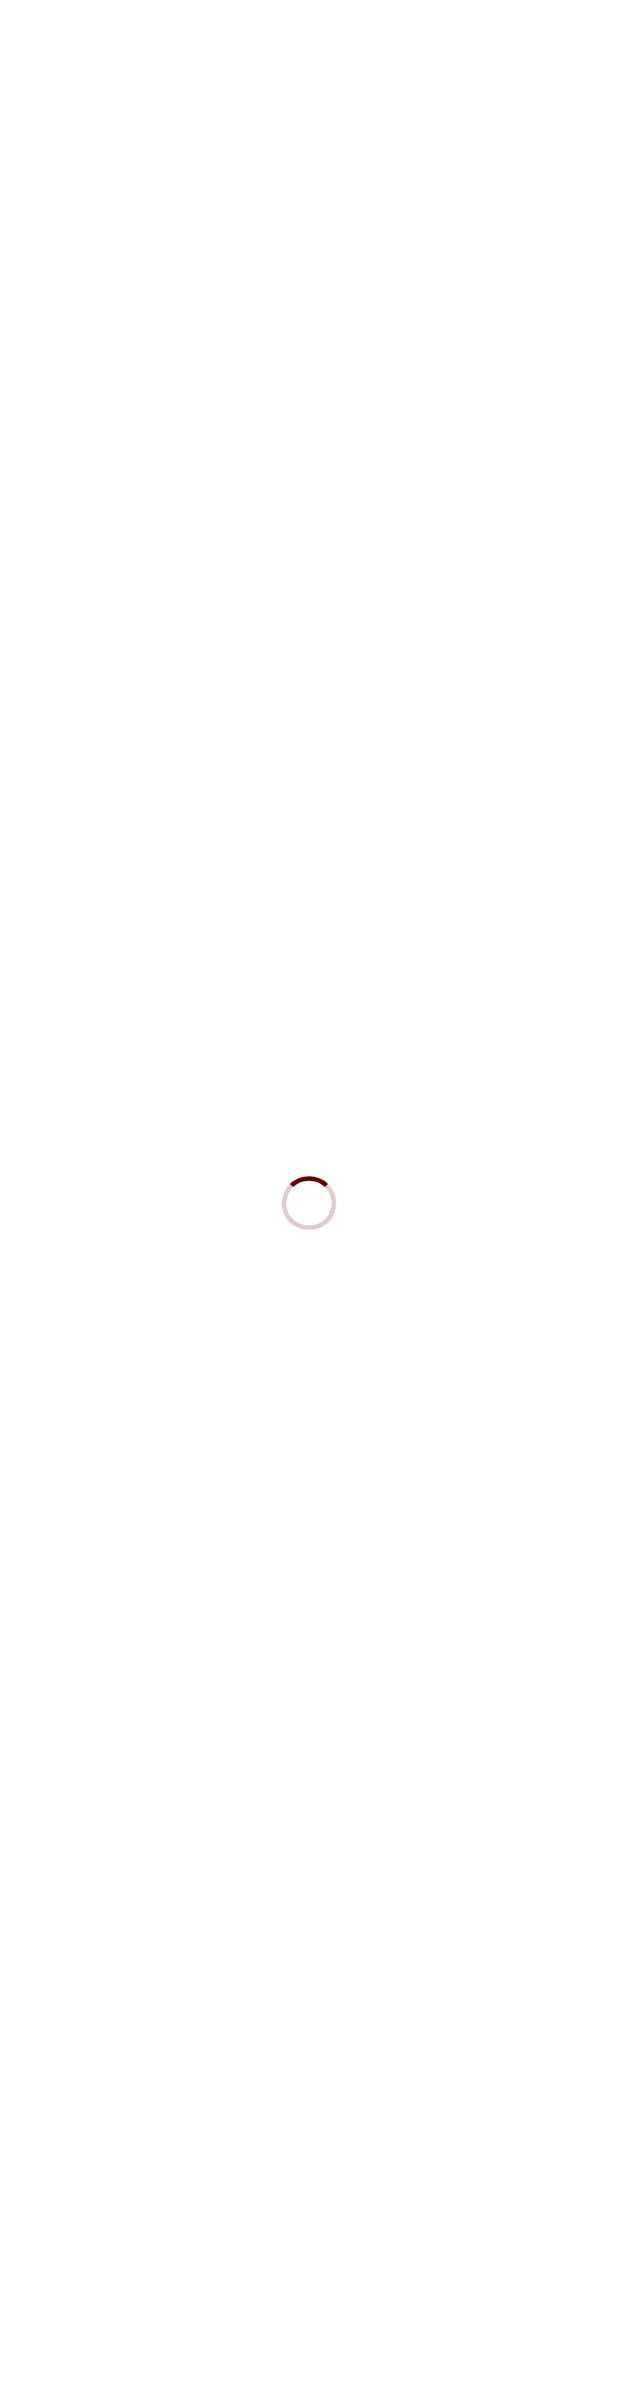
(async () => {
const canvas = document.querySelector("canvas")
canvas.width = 617
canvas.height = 2404
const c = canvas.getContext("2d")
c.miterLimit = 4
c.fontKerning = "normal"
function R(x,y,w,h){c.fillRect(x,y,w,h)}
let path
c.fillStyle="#fff"
R(0,0,617,2404)
path = new Path2D("M291.5 1185.5c9.5-9.5 25.5-9.5 35 0")
c.strokeStyle="#600"
c.lineWidth=4.5
c.stroke(path)
path = new Path2D("M326.5 1185.5c6 6 8.5 14.5 7 22.5c-6 29-49.5 24.5-49.5-5c.5-6.5 3-13 7.5-17.5")
c.strokeStyle="#66000033"
c.stroke(path)
})()
